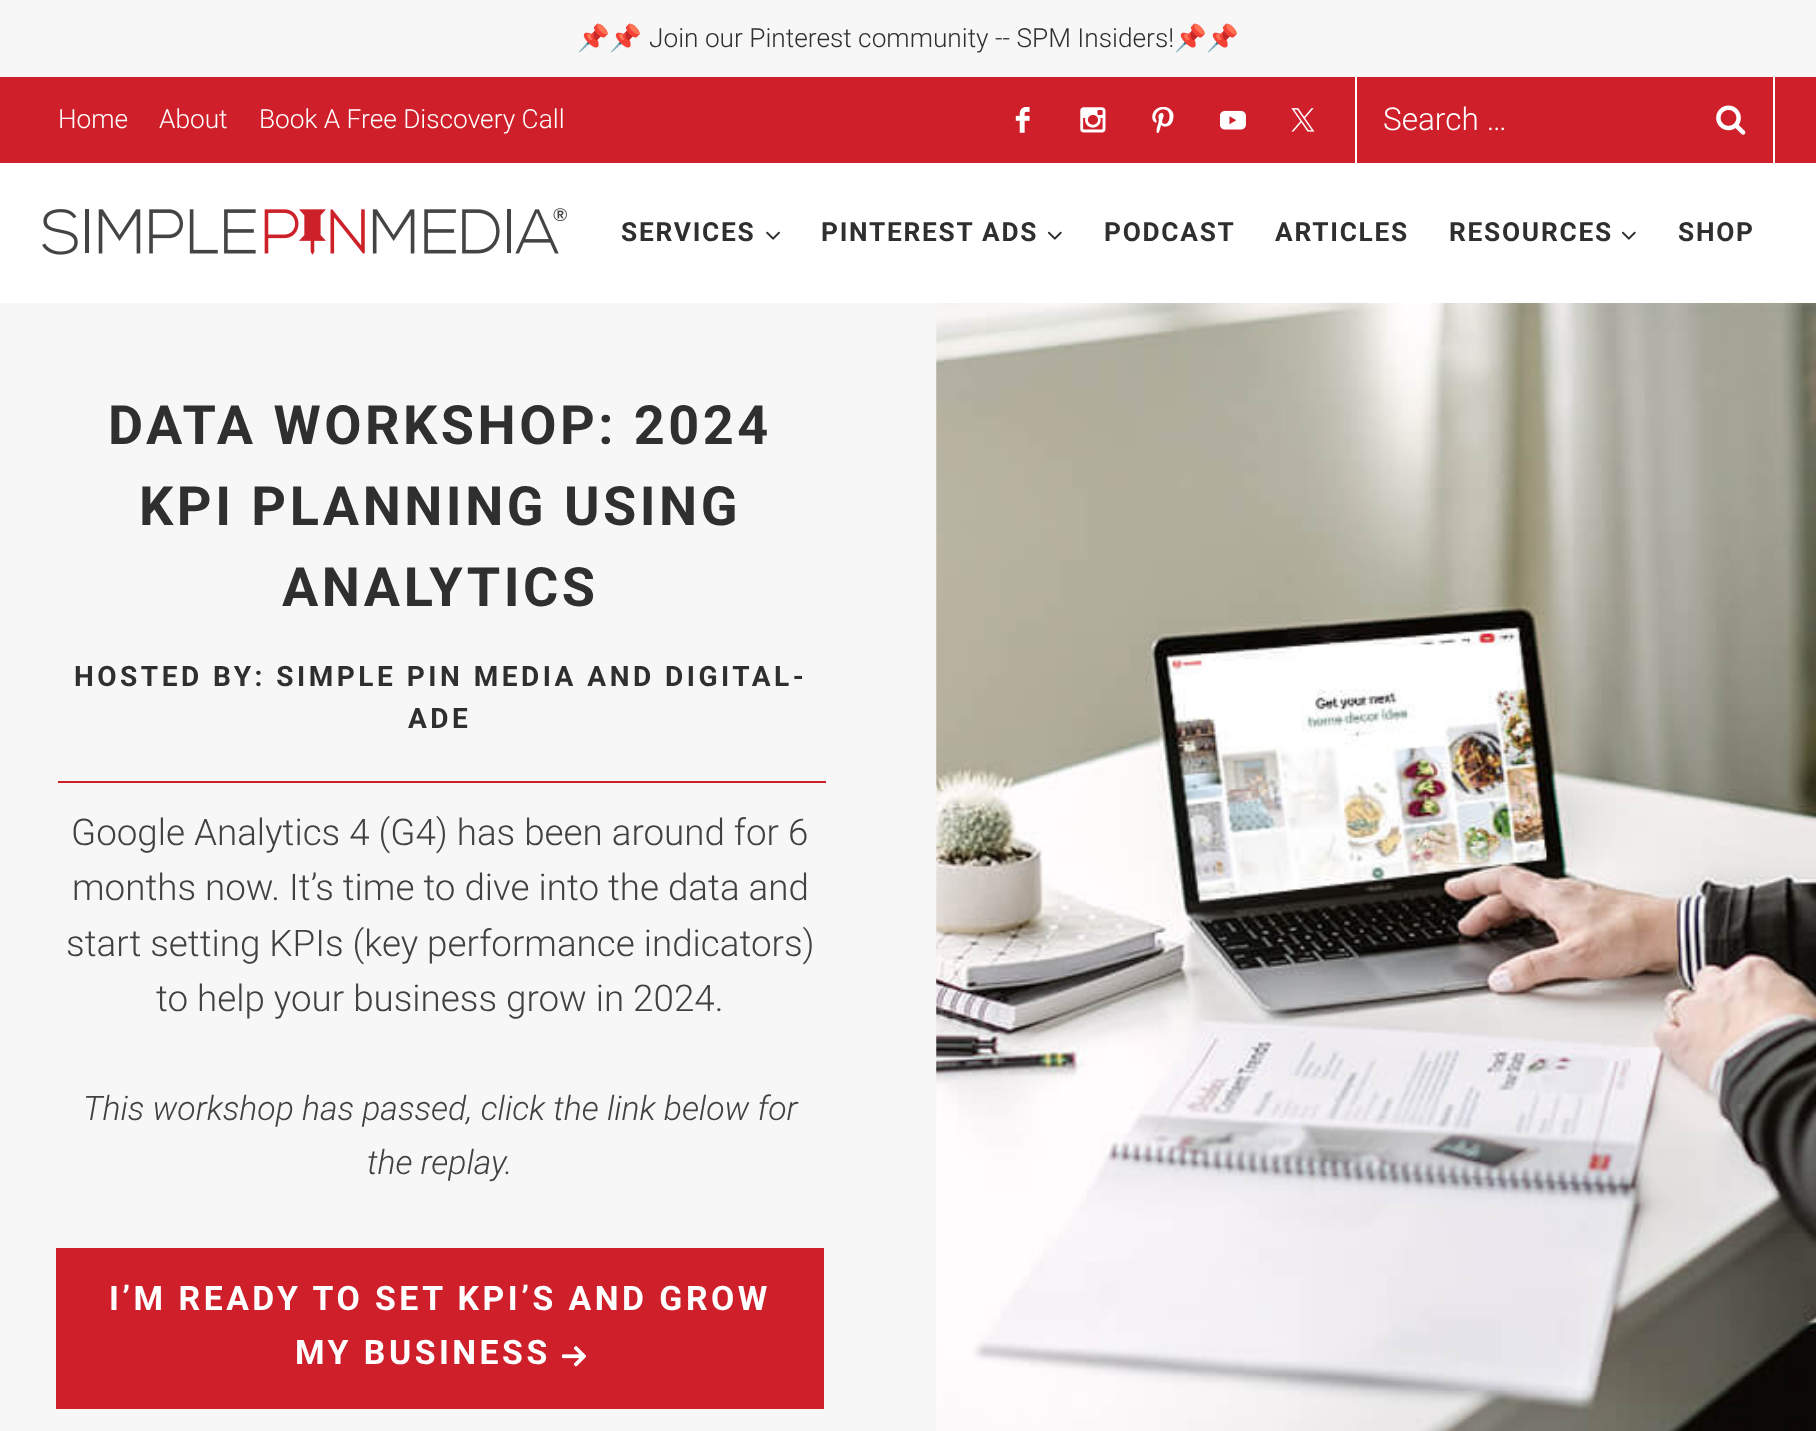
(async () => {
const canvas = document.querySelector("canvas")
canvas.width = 1816
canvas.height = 1431
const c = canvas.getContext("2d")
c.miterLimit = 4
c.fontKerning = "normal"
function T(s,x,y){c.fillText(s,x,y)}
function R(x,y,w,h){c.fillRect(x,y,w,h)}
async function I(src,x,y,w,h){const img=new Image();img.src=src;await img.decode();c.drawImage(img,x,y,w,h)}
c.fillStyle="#f7f7f7"
R(0,0,1816,1431)
c.font="26.25px Noto Color Emoji"
c.fillStyle="#2f2f2f"
T("📌📌",577,47)
c.font="300 26.25px Roboto"
T("Join our Pinterest community -- SPM Insiders!",649,47)
c.font="26.25px Noto Color Emoji"
T("📌📌",1174,47)
c.fillStyle="#fff"
R(0,163,1816,140)
c.fillStyle="#cf1f2a"
R(0,77,1816,86)
c.font="300 26.25px Roboto"
c.fillStyle="#fff"
T("Home",58,128)
T("About",159,128)
T("Book A Free Discovery Call",259,128)
await I("1.png",1015,107,15,26)
await I("2.png",1080,107,26,26)
await I("3.png",1152,107,22,26)
await I("4.png",1220,110,26,20)
await I("5.png",1291,108,24,24)
R(1773,77,2,86)
R(1355,77,2,86)
c.font="300 31.5px Roboto"
T("Search …",1383,130)
await I("6.png",1716,105,30,30)
await I("7.png",42,208,525,47)
c.letterSpacing="1.75px"
c.font="bold 26.25px Roboto"
c.fillStyle="#2f2f2f"
T("SERVICES",621,241)
await I("8.png",766,231,14,9)
T("PINTEREST ADS",821,241)
await I("9.png",1047,231,15,9)
T("PODCAST",1104,241)
T("ARTICLES",1275,241)
T("RESOURCES",1449,241)
await I("9.png",1621,231,15,9)
T("SHOP",1678,241)
c.letterSpacing="3.5px"
c.font="bold 54px Roboto"
T("DATA WORKSHOP: 2024",108,444)
T("KPI PLANNING USING",139,525)
T("ANALYTICS",282,606)
c.font="bold 28px Roboto"
T("HOSTED BY: SIMPLE PIN MEDIA AND DIGITAL-",74,686)
T("ADE",408,728)
c.fillStyle="#cf1f2a"
R(58,781,768,2)
c.letterSpacing="0px"
c.font="300 36.75px Roboto"
c.fillStyle="#414141"
T("Google Analytics 4 (G4) has been around for 6",71,845)
T("months now. It’s time to dive into the data and",72,900)
T("start setting KPIs (key performance indicators)",66,956)
T("to help your business grow in 2024.",156,1011)
c.font="italic 300 33.75px Roboto"
T("This workshop has passed, click the link below for",83,1120)
T("the replay.",367,1174)
c.fillStyle="#cf1f2a"
R(56,1248,768,161)
c.letterSpacing="3.5px"
c.font="bold 33.75px Roboto"
c.fillStyle="#fff"
T("I’M READY TO SET KPI’S AND GROW",109,1310)
T("MY BUSINESS",295,1364)
await I("10.png",562,1346,24,21)
await I("11.png",936,303,880,1128)
})()
